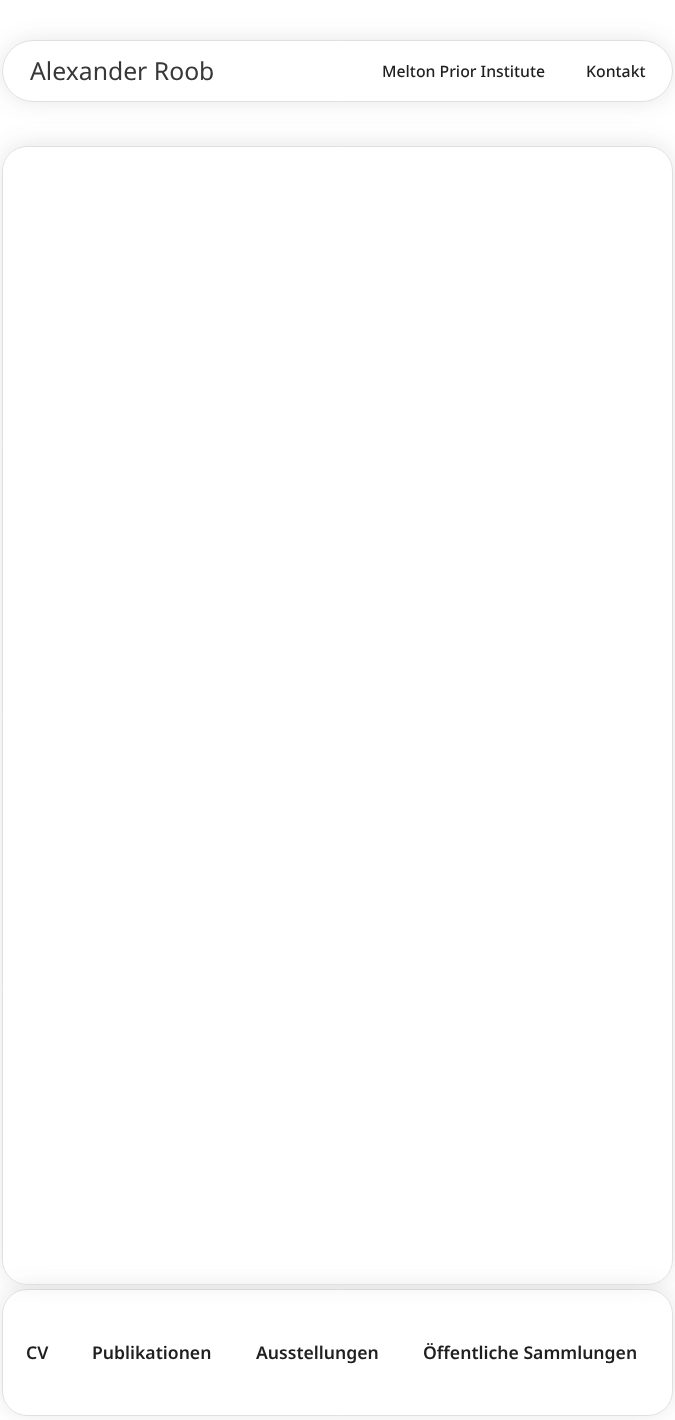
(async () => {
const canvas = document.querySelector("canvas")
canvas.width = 675
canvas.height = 1420
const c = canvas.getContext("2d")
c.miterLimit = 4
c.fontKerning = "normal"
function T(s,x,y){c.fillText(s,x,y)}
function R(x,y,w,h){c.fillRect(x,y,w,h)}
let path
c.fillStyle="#fff"
R(0,0,675,1420)
c.save()
path = new Path2D("M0 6h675v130h-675zm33 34h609c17 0 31 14 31 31c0 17-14 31-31 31h-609c-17 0-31-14-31-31c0-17 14-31 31-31z")
c.clip(path,"evenodd")
c.fillStyle="#3d3d3d1f"
c.filter="blur(11px)"
c.beginPath()
c.roundRect(2,40,671,62,31)
c.fill()
c.filter="none"
c.restore()
c.beginPath()
c.roundRect(2.5,40.5,670,61,30.5)
c.strokeStyle="#e0e0e0"
c.stroke()
c.font="24.75px Noto Sans"
c.fillStyle="#383838"
T("Alexander Roob",30,80)
c.font="500 15.8px Noto Sans"
c.fillStyle="#1f1f1f"
T("Melton Prior Institute",382,77)
T("Kontakt",586,77)
c.save()
path = new Path2D("M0 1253h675v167h-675zm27 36h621c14 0 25 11 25 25v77c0 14-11 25-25 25h-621c-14 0-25-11-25-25v-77c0-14 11-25 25-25z")
c.clip(path,"evenodd")
c.fillStyle="#3d3d3d1f"
c.filter="blur(11px)"
c.beginPath()
c.roundRect(2,1287,671,127,25)
c.fill()
c.filter="none"
c.restore()
c.beginPath()
c.roundRect(2.5,1289.5,670,126,24.5)
c.stroke()
c.save()
path = new Path2D("M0 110h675v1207h-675zm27 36h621c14 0 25 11 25 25v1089c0 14-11 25-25 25h-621c-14 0-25-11-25-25v-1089c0-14 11-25 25-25z")
c.clip(path,"evenodd")
c.fillStyle="#3d3d3d1f"
c.filter="blur(11px)"
c.beginPath()
c.roundRect(2,144,671,1139,25)
c.fill()
c.filter="none"
c.restore()
c.beginPath()
c.roundRect(2.5,146.5,670,1138,24.5)
c.stroke()
c.font="600 17.6px Noto Sans"
T("CV",26,1359)
T("Publikationen",92,1359)
T("Ausstellungen",256,1359)
T("Öffentliche Sammlungen",423,1359)
})()
